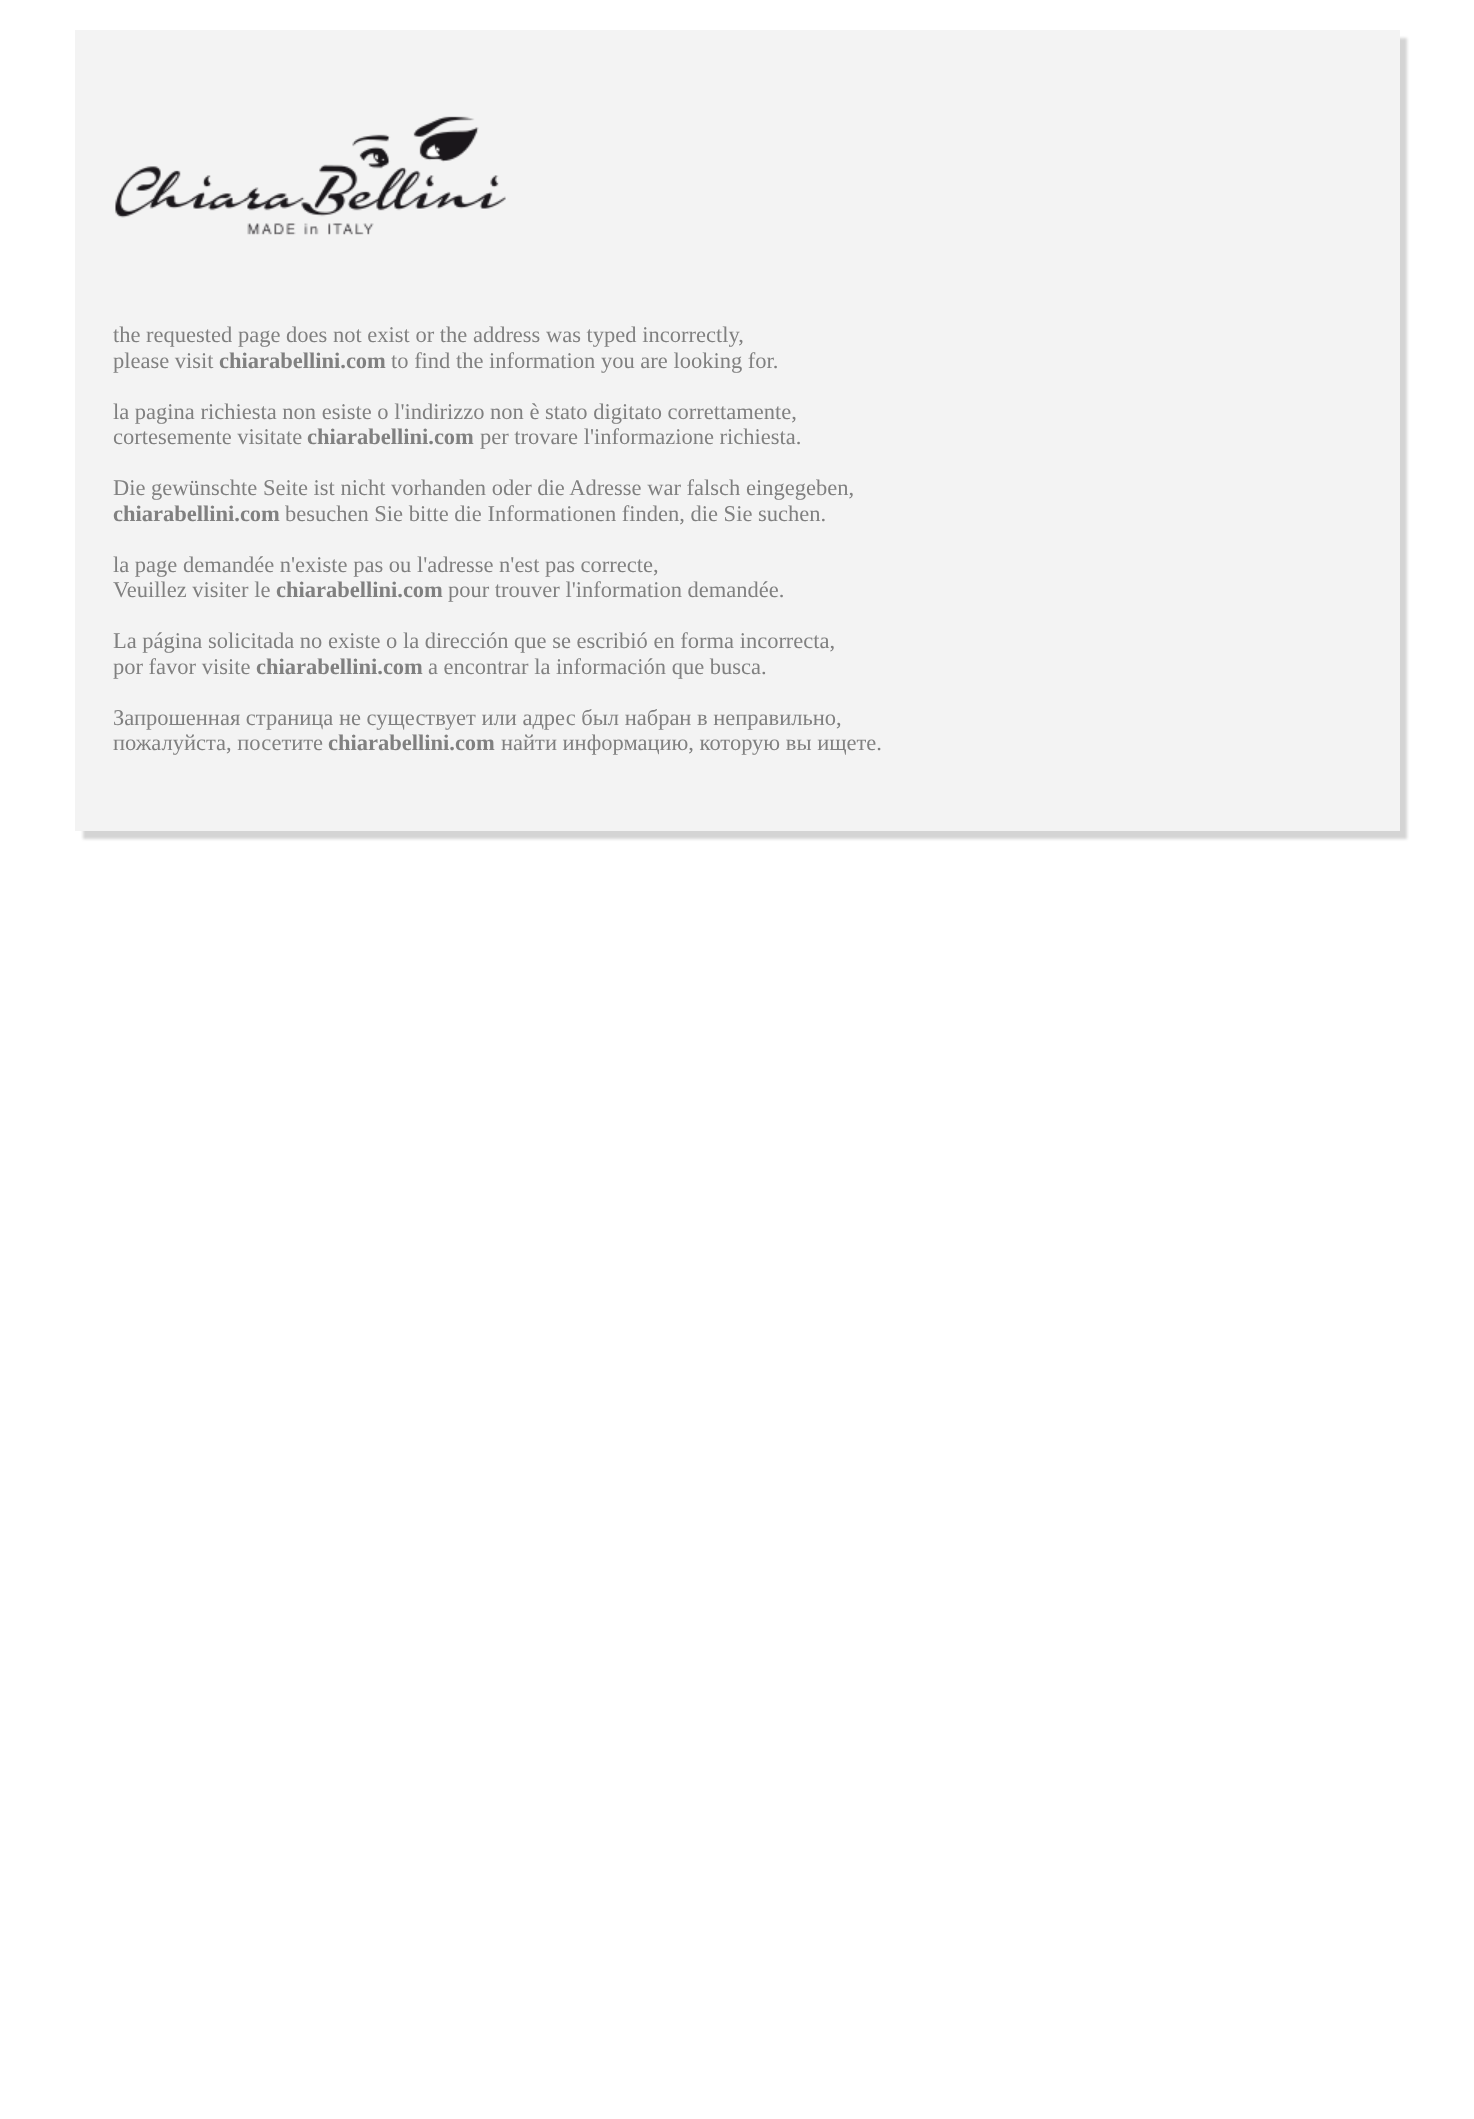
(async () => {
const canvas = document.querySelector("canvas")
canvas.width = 1474
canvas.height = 2119
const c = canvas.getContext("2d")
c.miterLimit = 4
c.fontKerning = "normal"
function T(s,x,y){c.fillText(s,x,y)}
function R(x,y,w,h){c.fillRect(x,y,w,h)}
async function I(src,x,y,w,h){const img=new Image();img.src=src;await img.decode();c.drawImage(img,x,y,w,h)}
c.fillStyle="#fff"
R(0,0,1474,2119)
c.fillStyle="#d4d4d4"
c.filter="blur(1.5px)"
c.beginPath()
c.rect(83,38,1324,801)
c.fill()
c.filter="none"
c.fillStyle="#f3f3f3"
R(75,30,1325,801)
await I("1.png",115,116,391,119)
c.font="22.5px Liberation Serif"
c.fillStyle="#808080"
T("the requested page does not exist or the address was typed incorrectly,",113,342)
T("please visit",113,368)
c.font="bold 22.5px Liberation Serif"
T("chiarabellini.com",219,368)
c.font="22.5px Liberation Serif"
T("to find the information you are looking for.",391,368)
T("la pagina richiesta non esiste o l'indirizzo non è stato digitato correttamente,",113,419)
T("cortesemente visitate",113,444)
c.font="bold 22.5px Liberation Serif"
T("chiarabellini.com",307,444)
c.font="22.5px Liberation Serif"
T("per trovare l'informazione richiesta.",480,444)
T("Die gewünschte Seite ist nicht vorhanden oder die Adresse war falsch eingegeben,",113,495)
c.font="bold 22.5px Liberation Serif"
T("chiarabellini.com",113,521)
c.font="22.5px Liberation Serif"
T("besuchen Sie bitte die Informationen finden, die Sie suchen.",285,521)
T("la page demandée n'existe pas ou l'adresse n'est pas correcte,",113,572)
T("Veuillez visiter le",113,597)
c.font="bold 22.5px Liberation Serif"
T("chiarabellini.com",276,597)
c.font="22.5px Liberation Serif"
T("pour trouver l'information demandée.",448,597)
T("La página solicitada no existe o la dirección que se escribió en forma incorrecta,",113,648)
T("por favor visite",113,674)
c.font="bold 22.5px Liberation Serif"
T("chiarabellini.com",256,674)
c.font="22.5px Liberation Serif"
T("a encontrar la información que busca.",428,674)
T("Запрошенная страница не существует или адрес был набран в неправильно,",113,725)
T("пожалуйста, посетите",113,750)
c.font="bold 22.5px Liberation Serif"
T("chiarabellini.com",328,750)
c.font="22.5px Liberation Serif"
T("найти информацию, которую вы ищете.",501,750)
})()
